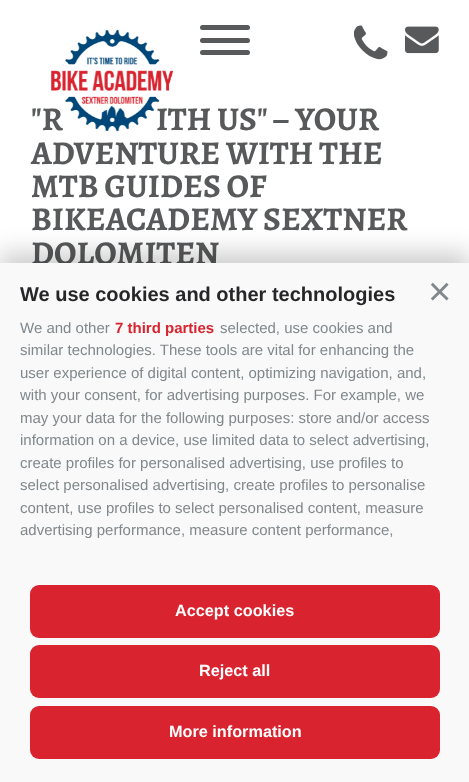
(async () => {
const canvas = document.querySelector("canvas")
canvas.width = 469
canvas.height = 782
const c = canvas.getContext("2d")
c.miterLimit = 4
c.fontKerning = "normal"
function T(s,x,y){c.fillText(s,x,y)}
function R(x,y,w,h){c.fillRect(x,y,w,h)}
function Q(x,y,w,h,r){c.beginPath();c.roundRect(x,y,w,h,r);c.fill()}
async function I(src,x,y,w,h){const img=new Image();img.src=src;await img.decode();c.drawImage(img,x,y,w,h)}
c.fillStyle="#fff"
R(0,0,469,782)
c.font="bold 33.25px Alegreya"
c.fillStyle="#58595a"
T("\"R",31,130)
T("ITH US\" – YOUR",156,130)
await I("1.png",51,30,122,102)
Q(200,38,50,5,2.5)
Q(200,25,50,5,2.5)
Q(200,50,50,5,2.5)
await I("2.png",354,25,34,35)
await I("3.png",405,26,34,28)
T("ADVENTURE WITH THE",31,164)
T("MTB GUIDES OF",31,197)
T("BIKEACADEMY SEXTNER",31,230)
T("DOLOMITEN",31,264)
c.fillStyle="#00000033"
c.filter="blur(12.5px)"
c.beginPath()
c.rect(0,253,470,520)
c.fill()
c.filter="none"
c.fillStyle="#f9f9f9"
R(0,263,469,519)
c.font="bold 20px Liberation Sans"
c.fillStyle="#262628"
T("We use cookies and other technologies",20,301)
c.font="40px Liberation Sans"
c.fillStyle="#80888c"
T("×",428,305)
c.font="15px Liberation Sans"
T("We and other",20,333)
c.font="bold 15px Liberation Sans"
c.fillStyle="#d9242f"
T("7 third parties",115,333)
c.font="15px Liberation Sans"
c.fillStyle="#80888c"
T("selected, use cookies and",220,333)
T("similar technologies. These tools are vital for enhancing the",20,355)
T("user experience of digital content, optimizing navigation, and,",20,378)
T("with your consent, for advertising purposes. For example, we",20,400)
T("may your data for the following purposes: store and/or access",20,423)
T("information on a device, use limited data to select advertising,",20,445)
T("create profiles for personalised advertising, use profiles to",20,468)
T("select personalised advertising, create profiles to personalise",20,490)
T("content, use profiles to select personalised content, measure",20,513)
T("advertising performance, measure content performance,",20,535)
c.fillStyle="#d9242f"
Q(30,585,410,53,9)
c.font="bold 16.25px Liberation Sans"
c.fillStyle="#fff"
T("Accept cookies",175,616)
c.fillStyle="#d9242f"
Q(30,645,410,53,9)
c.fillStyle="#fff"
T("Reject all",199,676)
c.fillStyle="#d9242f"
Q(30,706,410,53,9)
c.fillStyle="#fff"
T("More information",169,737)
})()
